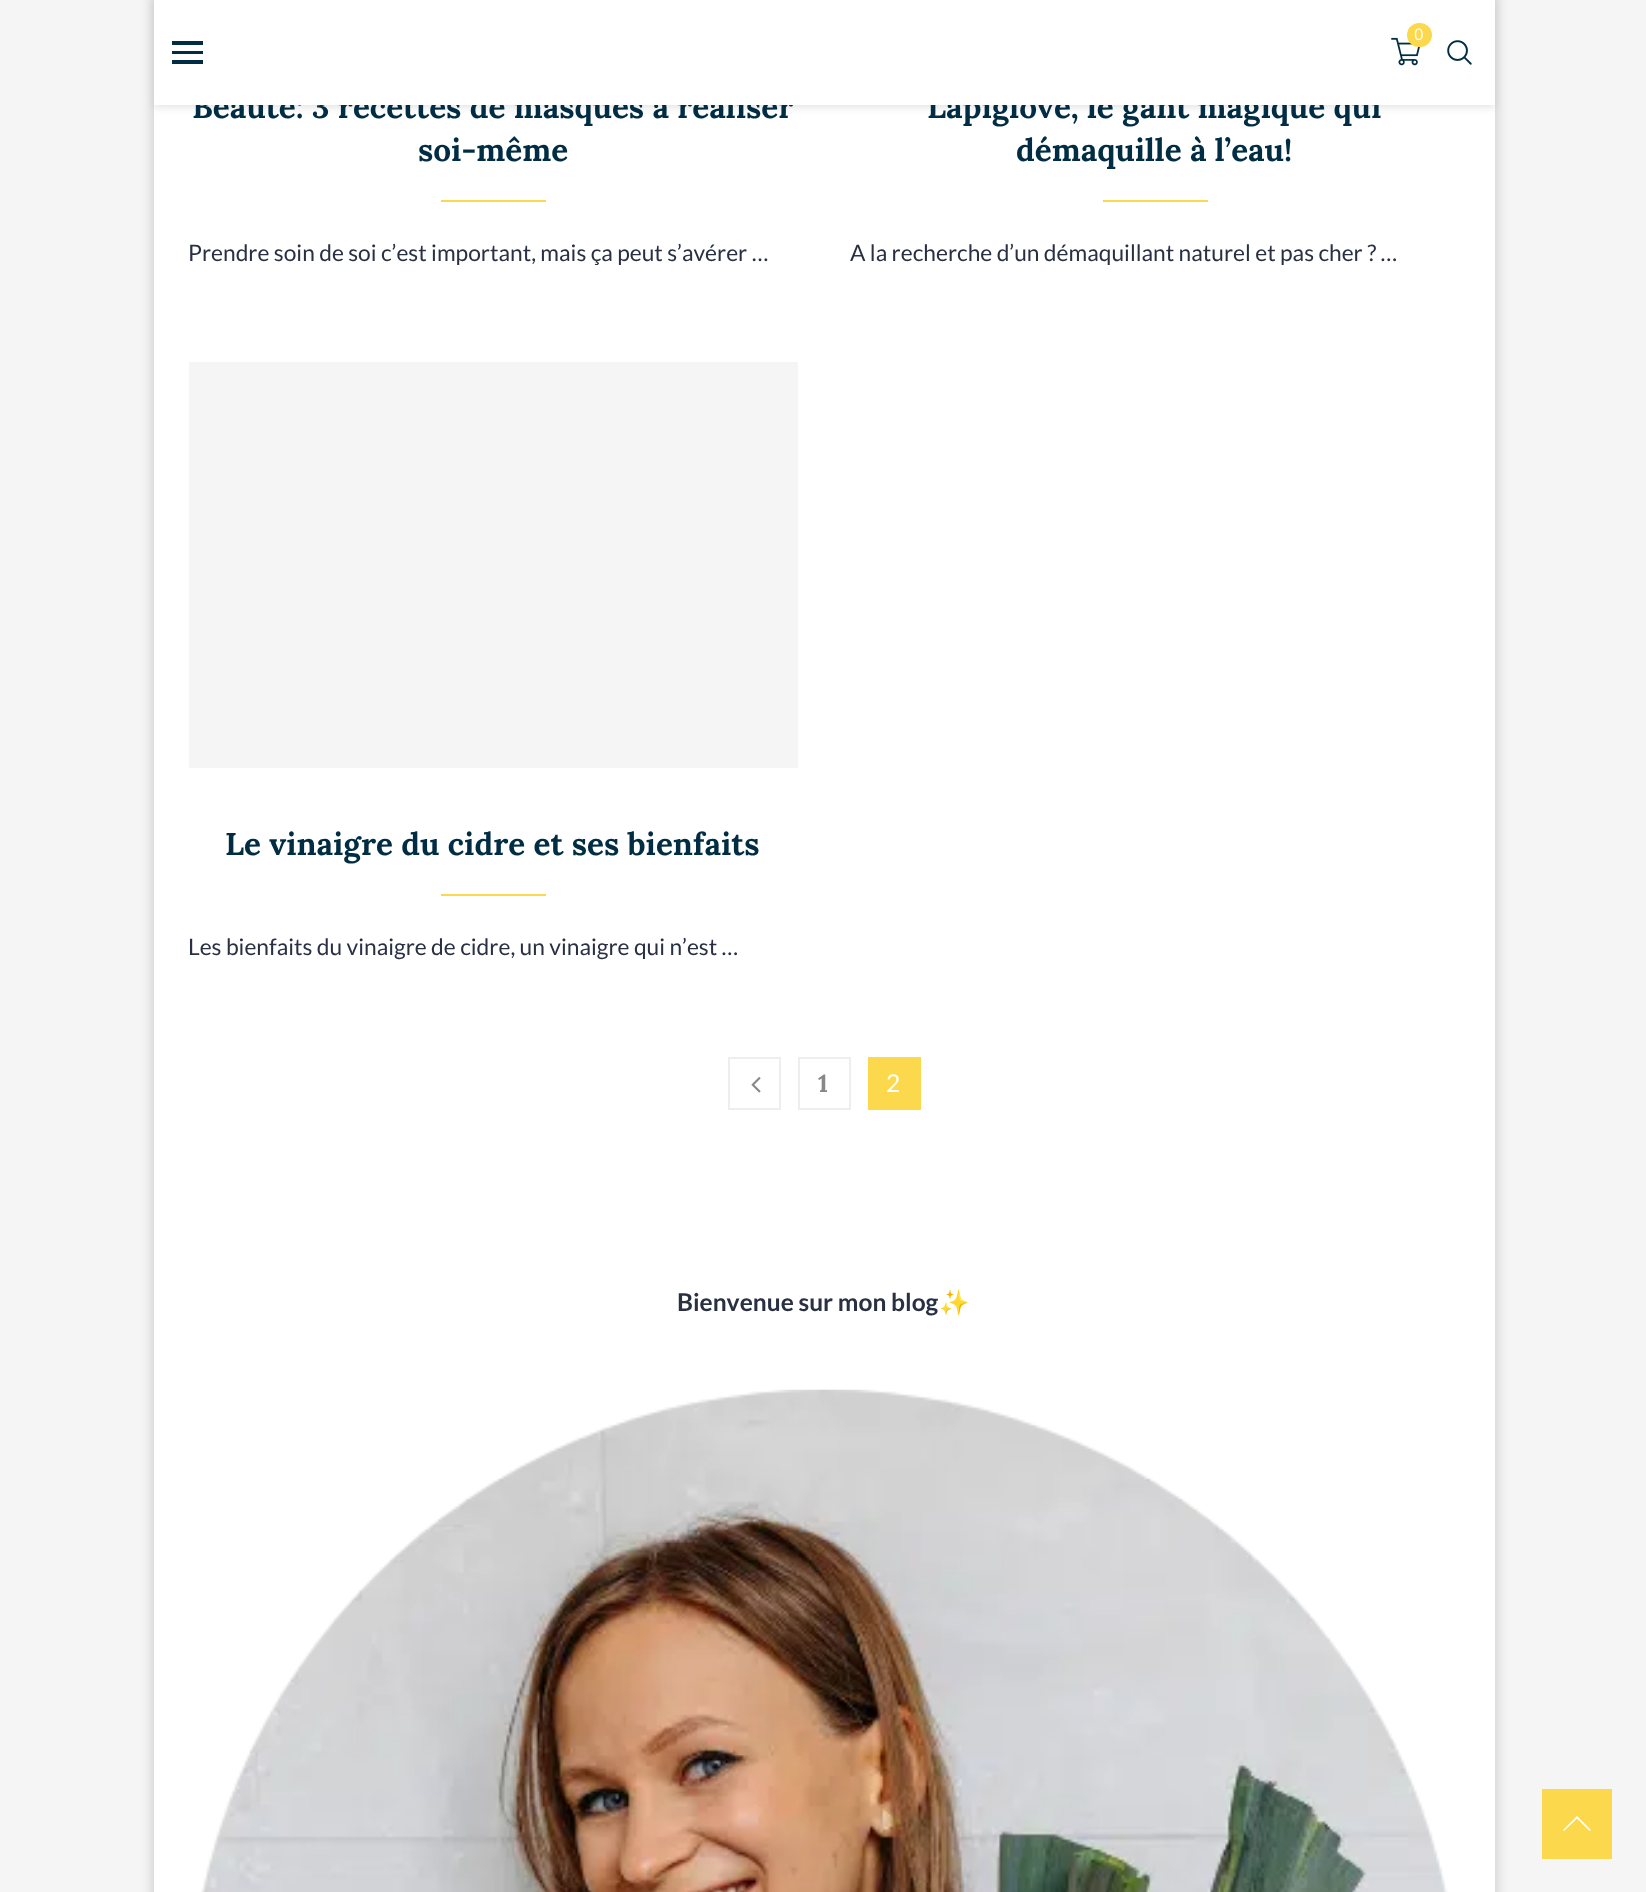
(async () => {
const canvas = document.querySelector("canvas")
canvas.width = 1646
canvas.height = 1892
const c = canvas.getContext("2d")
c.miterLimit = 4
c.fontKerning = "none"
function T(s,x,y){c.fillText(s,x,y)}
function R(x,y,w,h){c.fillRect(x,y,w,h)}
function Q(x,y,w,h,r){c.beginPath();c.roundRect(x,y,w,h,r);c.fill()}
async function I(src,x,y,w,h){const img=new Image();img.src=src;await img.decode();c.drawImage(img,x,y,w,h)}
let path
c.fillStyle="#f5f5f5"
R(0,0,1646,1892)
c.fillStyle="#00000033"
c.filter="blur(7px)"
c.beginPath()
c.rect(154,-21,1341,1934)
c.fill()
c.filter="none"
c.fillStyle="#fff"
R(154,105,1341,1787)
c.fillStyle="#bebebe75"
c.filter="blur(4.5px)"
c.beginPath()
c.rect(154,2,1341,105)
c.fill()
c.filter="none"
c.font="bold 31.5px Lora"
c.fillStyle="#002d43"
T("Beauté: 3 recettes de masques à réaliser",192,118)
T("Lapiglove, le gant magique qui",927,118)
c.fillStyle="#fff"
R(154,0,1341,105)
await I("1.png",1391,37,30,29)
c.fillStyle="#fbd84c"
Q(1407,23,25,24,12)
c.font="16px Muli"
c.fillStyle="#fff"
T("0",1414,40)
c.fillStyle="#002d43"
R(172,41,31,4)
R(172,51,31,3)
R(172,60,31,4)
await I("2.png",1447,40,25,25)
c.font="bold 31.5px Lora"
T("soi-même",418,161)
c.fillStyle="#fbd84c"
R(441,200,105,2)
c.font="22.75px Lato"
c.fillStyle="#283042"
T("Prendre soin de soi c’est important, mais ça peut s’avérer …",188,261)
c.font="bold 31.5px Lora"
c.fillStyle="#002d43"
T("démaquille à l’eau!",1016,161)
c.fillStyle="#fbd84c"
R(1103,200,105,2)
c.font="22.75px Lato"
c.fillStyle="#283042"
T("A la recherche d’un démaquillant naturel et pas cher ? …",850,261)
c.fillStyle="#f5f5f5"
R(189,362,609,406)
c.font="bold 31.5px Lora"
c.fillStyle="#002d43"
T("Le vinaigre du cidre et ses bienfaits",225,855)
c.fillStyle="#fbd84c"
R(441,894,105,2)
c.font="22.75px Lato"
c.fillStyle="#283042"
T("Les bienfaits du vinaigre de cidre, un vinaigre qui n’est …",188,955)
c.strokeStyle="#eee"
c.lineWidth=2
c.strokeRect(729,1058,51,51)
await I("3.png",751,1077,10,16)
c.strokeRect(799,1058,51,51)
c.font="bold 24.5px Lora"
c.fillStyle="#888"
T("1",818,1092)
c.fillStyle="#fbd84c"
R(868,1057,53,53)
c.font="24.5px Lato"
c.fillStyle="#fff"
T("2",886,1092)
c.font="bold 24.5px Lato"
c.fillStyle="#283042"
T("Bienvenue sur mon blog",677,1311)
c.font="bold 24.5px Noto Color Emoji"
T("✨",939,1311)
await I("4.png",201,1389,1247,503)
c.fillStyle="#fbd84c"
R(1542,1789,70,70)
c.fillStyle="#fff"
path = new Path2D("M1577 1816l-14 14l1 1l13-12.5l12.5 12.5l1.5-1z")
c.fill(path)
})()
